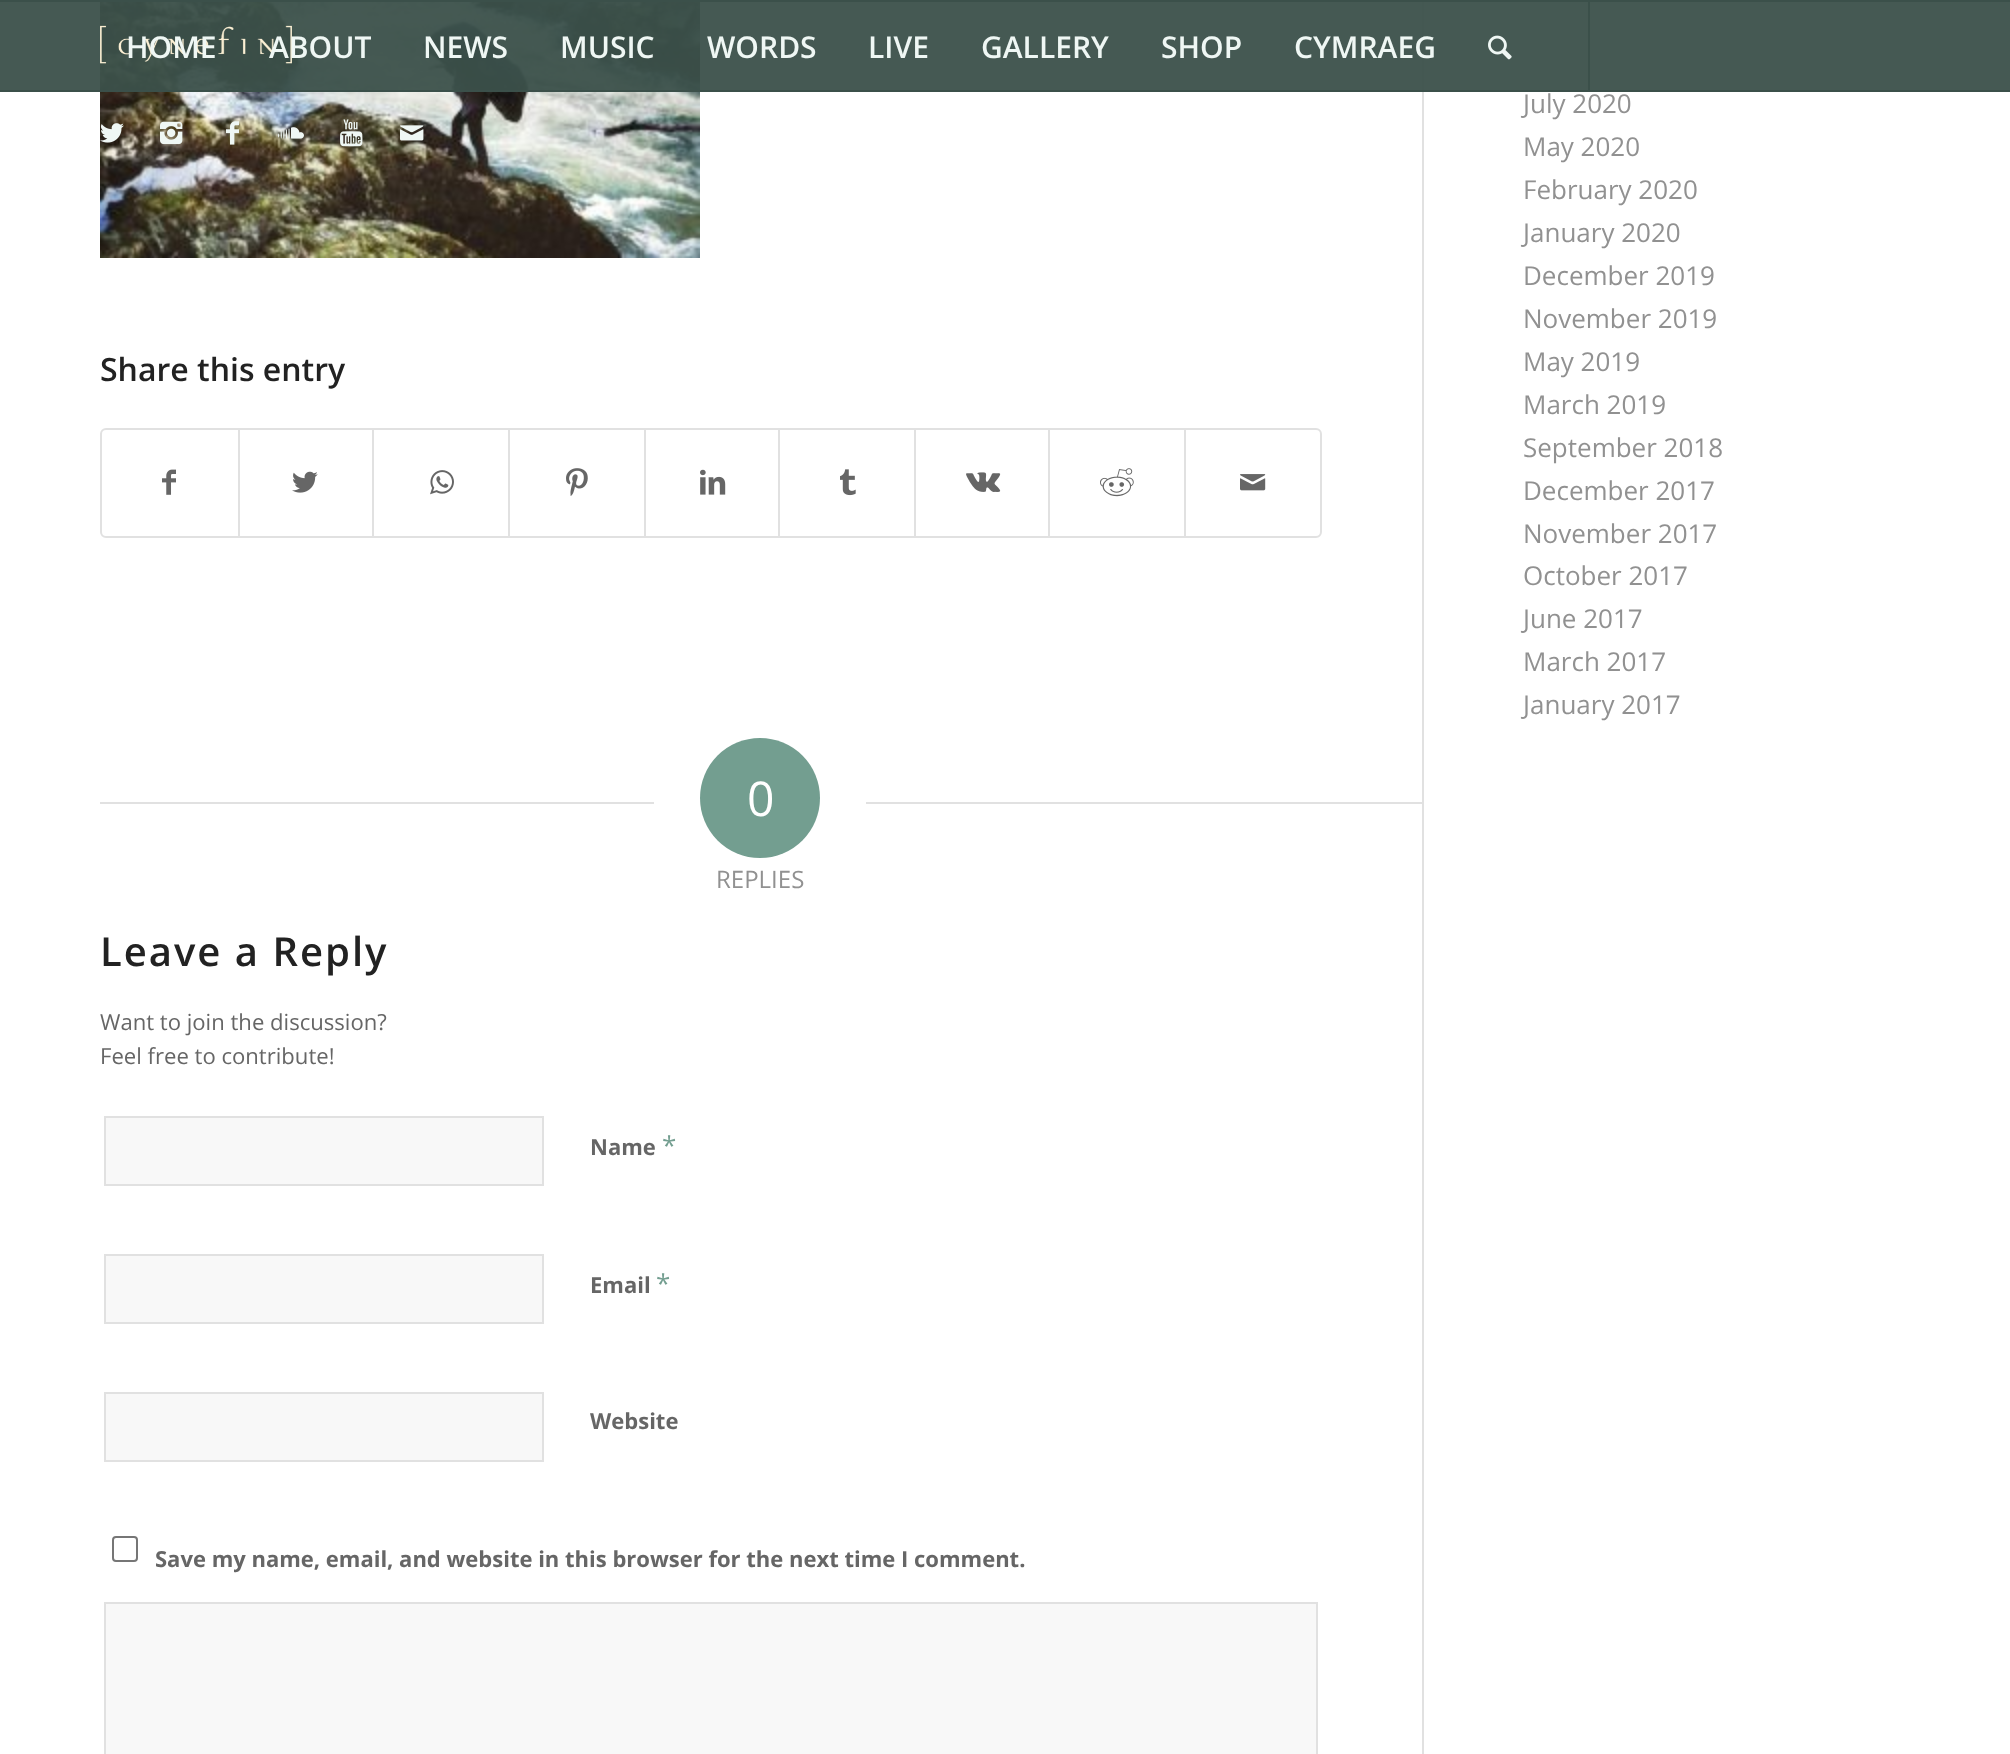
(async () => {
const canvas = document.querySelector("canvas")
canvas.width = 2010
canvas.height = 1754
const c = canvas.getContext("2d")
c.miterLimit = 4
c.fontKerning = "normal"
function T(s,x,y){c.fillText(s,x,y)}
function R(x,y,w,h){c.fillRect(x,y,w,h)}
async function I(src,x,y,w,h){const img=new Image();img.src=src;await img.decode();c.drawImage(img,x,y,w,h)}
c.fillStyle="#fff"
R(0,0,2010,1754)
c.fillStyle="#e1e1e1"
R(1422,0,2,1754)
await I("9.png",100,2,600,256)
c.fillStyle="#3b504af2"
R(0,2,2010,88)
c.fillStyle="#3b504a"
R(0,0,2010,2)
R(0,90,2010,2)
await I("1.png",100,25,192,39)
R(1588,2,2,88)
c.font="600 30px Open Sans"
c.fillStyle="#eff7f4"
T("HOME",126,58)
T("ABOUT",269,58)
T("NEWS",423,58)
T("MUSIC",560,58)
T("WORDS",707,58)
T("LIVE",868,58)
T("GALLERY",981,58)
T("SHOP",1161,58)
T("CYMRAEG",1294,58)
await I("2.png",1488,35,24,25)
await I("3.png",100,123,24,20)
await I("4.png",160,121,23,24)
await I("5.png",226,121,13,24)
await I("6.png",278,127,26,12)
await I("7.png",340,119,23,28)
await I("8.png",400,125,24,16)
c.font="600 32px Open Sans"
c.fillStyle="#222"
T("Share this entry",100,381)
c.beginPath()
c.roundRect(101,429,1220,108,5)
c.strokeStyle="#e1e1e1"
c.lineWidth=2
c.stroke()
await I("10.png",162,469,14,26)
c.fillStyle="#e1e1e1"
R(238,430,2,106)
await I("11.png",292,471,26,22)
R(372,430,2,106)
await I("12.png",430,470,24,25)
R(508,430,2,106)
await I("13.png",566,468,22,28)
R(644,430,2,106)
await I("14.png",700,469,26,26)
R(778,430,2,106)
await I("15.png",840,469,16,27)
R(914,430,2,106)
await I("16.png",966,472,35,20)
R(1048,430,2,106)
await I("17.png",1100,468,34,29)
R(1184,430,2,106)
await I("18.png",1240,474,26,17)
R(100,802,554,2)
c.fillStyle="#739e90"
c.beginPath()
c.arc(760,798,60,0,7)
c.fill()
c.font="48px Open Sans"
c.fillStyle="#fff"
T("0",747,816)
c.fillStyle="#e1e1e1"
R(866,802,556,2)
c.font="24px Open Sans"
c.fillStyle="#919191"
T("REPLIES",716,888)
c.letterSpacing="2px"
c.font="600 40px Open Sans"
c.fillStyle="#222"
T("Leave a Reply",100,966)
c.letterSpacing="0px"
c.font="22.1px Open Sans"
c.fillStyle="#666"
T("Want to join the discussion?",100,1030)
T("Feel free to contribute!",100,1064)
c.fillStyle="#f8f8f8"
c.beginPath()
c.rect(105,1117,438,68)
c.fill()
c.stroke()
c.font="bold 22px Open Sans"
c.fillStyle="#666"
T("Name",590,1155)
c.font="26px Open Sans"
c.fillStyle="#739e90"
T("*",662,1155)
c.fillStyle="#f8f8f8"
c.beginPath()
c.rect(105,1255,438,68)
c.fill()
c.stroke()
c.font="bold 22px Open Sans"
c.fillStyle="#666"
T("Email",590,1293)
c.font="26px Open Sans"
c.fillStyle="#739e90"
T("*",656,1293)
c.fillStyle="#f8f8f8"
c.beginPath()
c.rect(105,1393,438,68)
c.fill()
c.stroke()
c.font="bold 22px Open Sans"
c.fillStyle="#666"
T("Website",590,1429)
c.beginPath()
c.roundRect(113,1537,24,24,3)
c.strokeStyle="#767676"
c.stroke()
T("Save my name, email, and website in this browser for the next time I comment.",155,1567)
c.fillStyle="#f8f8f8"
c.beginPath()
c.rect(105,1603,1212,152)
c.fill()
c.strokeStyle="#e1e1e1"
c.stroke()
c.font="26px Open Sans"
c.fillStyle="#919191"
T("July 2020",1523,113)
T("May 2020",1523,156)
T("February 2020",1523,199)
T("January 2020",1523,242)
T("December 2019",1523,285)
T("November 2019",1523,328)
T("May 2019",1523,371)
T("March 2019",1523,414)
T("September 2018",1523,457)
T("December 2017",1523,500)
T("November 2017",1523,543)
T("October 2017",1523,585)
T("June 2017",1523,628)
T("March 2017",1523,671)
T("January 2017",1523,714)
})()
